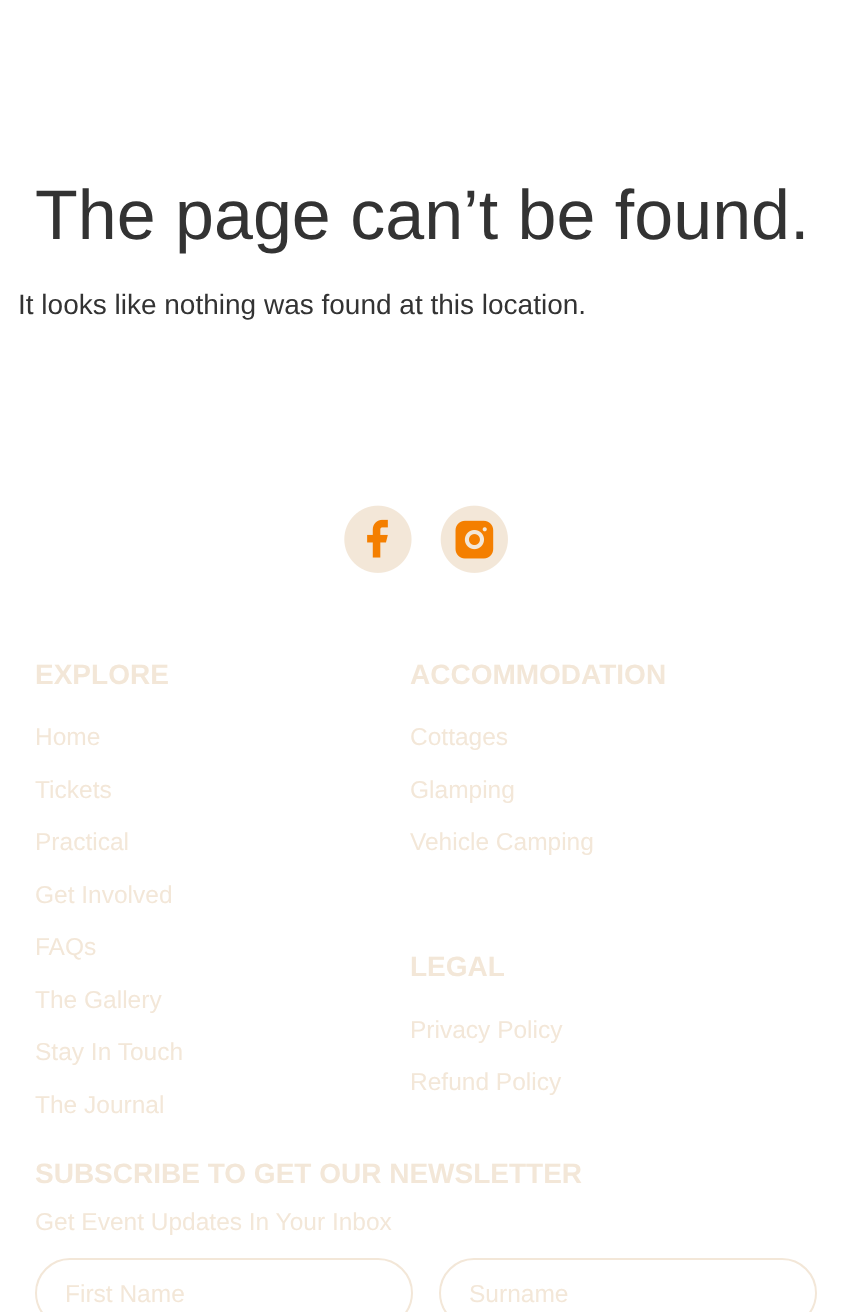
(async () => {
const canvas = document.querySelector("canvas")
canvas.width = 851
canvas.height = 1312
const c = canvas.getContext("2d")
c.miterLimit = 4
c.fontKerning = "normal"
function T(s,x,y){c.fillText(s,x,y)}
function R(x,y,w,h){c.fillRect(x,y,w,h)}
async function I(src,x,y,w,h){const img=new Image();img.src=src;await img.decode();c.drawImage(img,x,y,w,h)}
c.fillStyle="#fff"
R(0,0,851,1312)
c.font="70px Liberation Sans"
c.fillStyle="#333"
T("The page can’t be found.",35,239)
c.font="28px Liberation Sans"
T("It looks like nothing was found at this location.",18,314)
await I("1.png",344,505,68,68)
await I("2.png",440,505,68,68)
c.font="bold 28px Liberation Sans"
c.fillStyle="#f3e7d8"
T("EXPLORE",35,684)
c.font="24.5px Liberation Sans"
T("Home",35,745)
T("Tickets",35,798)
T("Practical",35,850)
T("Get Involved",35,903)
T("FAQs",35,955)
T("The Gallery",35,1008)
T("Stay In Touch",35,1060)
T("The Journal",35,1113)
c.font="bold 28px Liberation Sans"
T("ACCOMMODATION",410,684)
c.font="24.5px Liberation Sans"
T("Cottages",410,745)
T("Glamping",410,798)
T("Vehicle Camping",410,850)
c.font="bold 28px Liberation Sans"
T("LEGAL",410,976)
c.font="24.5px Liberation Sans"
T("Privacy Policy",410,1038)
T("Refund Policy",410,1090)
c.font="bold 28px Liberation Sans"
T("SUBSCRIBE TO GET OUR NEWSLETTER",35,1183)
c.font="24.5px Liberation Sans"
T("Get Event Updates In Your Inbox",35,1230)
c.beginPath()
c.roundRect(36,1259,376,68,34)
c.strokeStyle="#f3e7d8"
c.lineWidth=2
c.stroke()
T("First Name",65,1302)
c.beginPath()
c.roundRect(440,1259,376,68,34)
c.stroke()
T("Surname",469,1302)
})()
